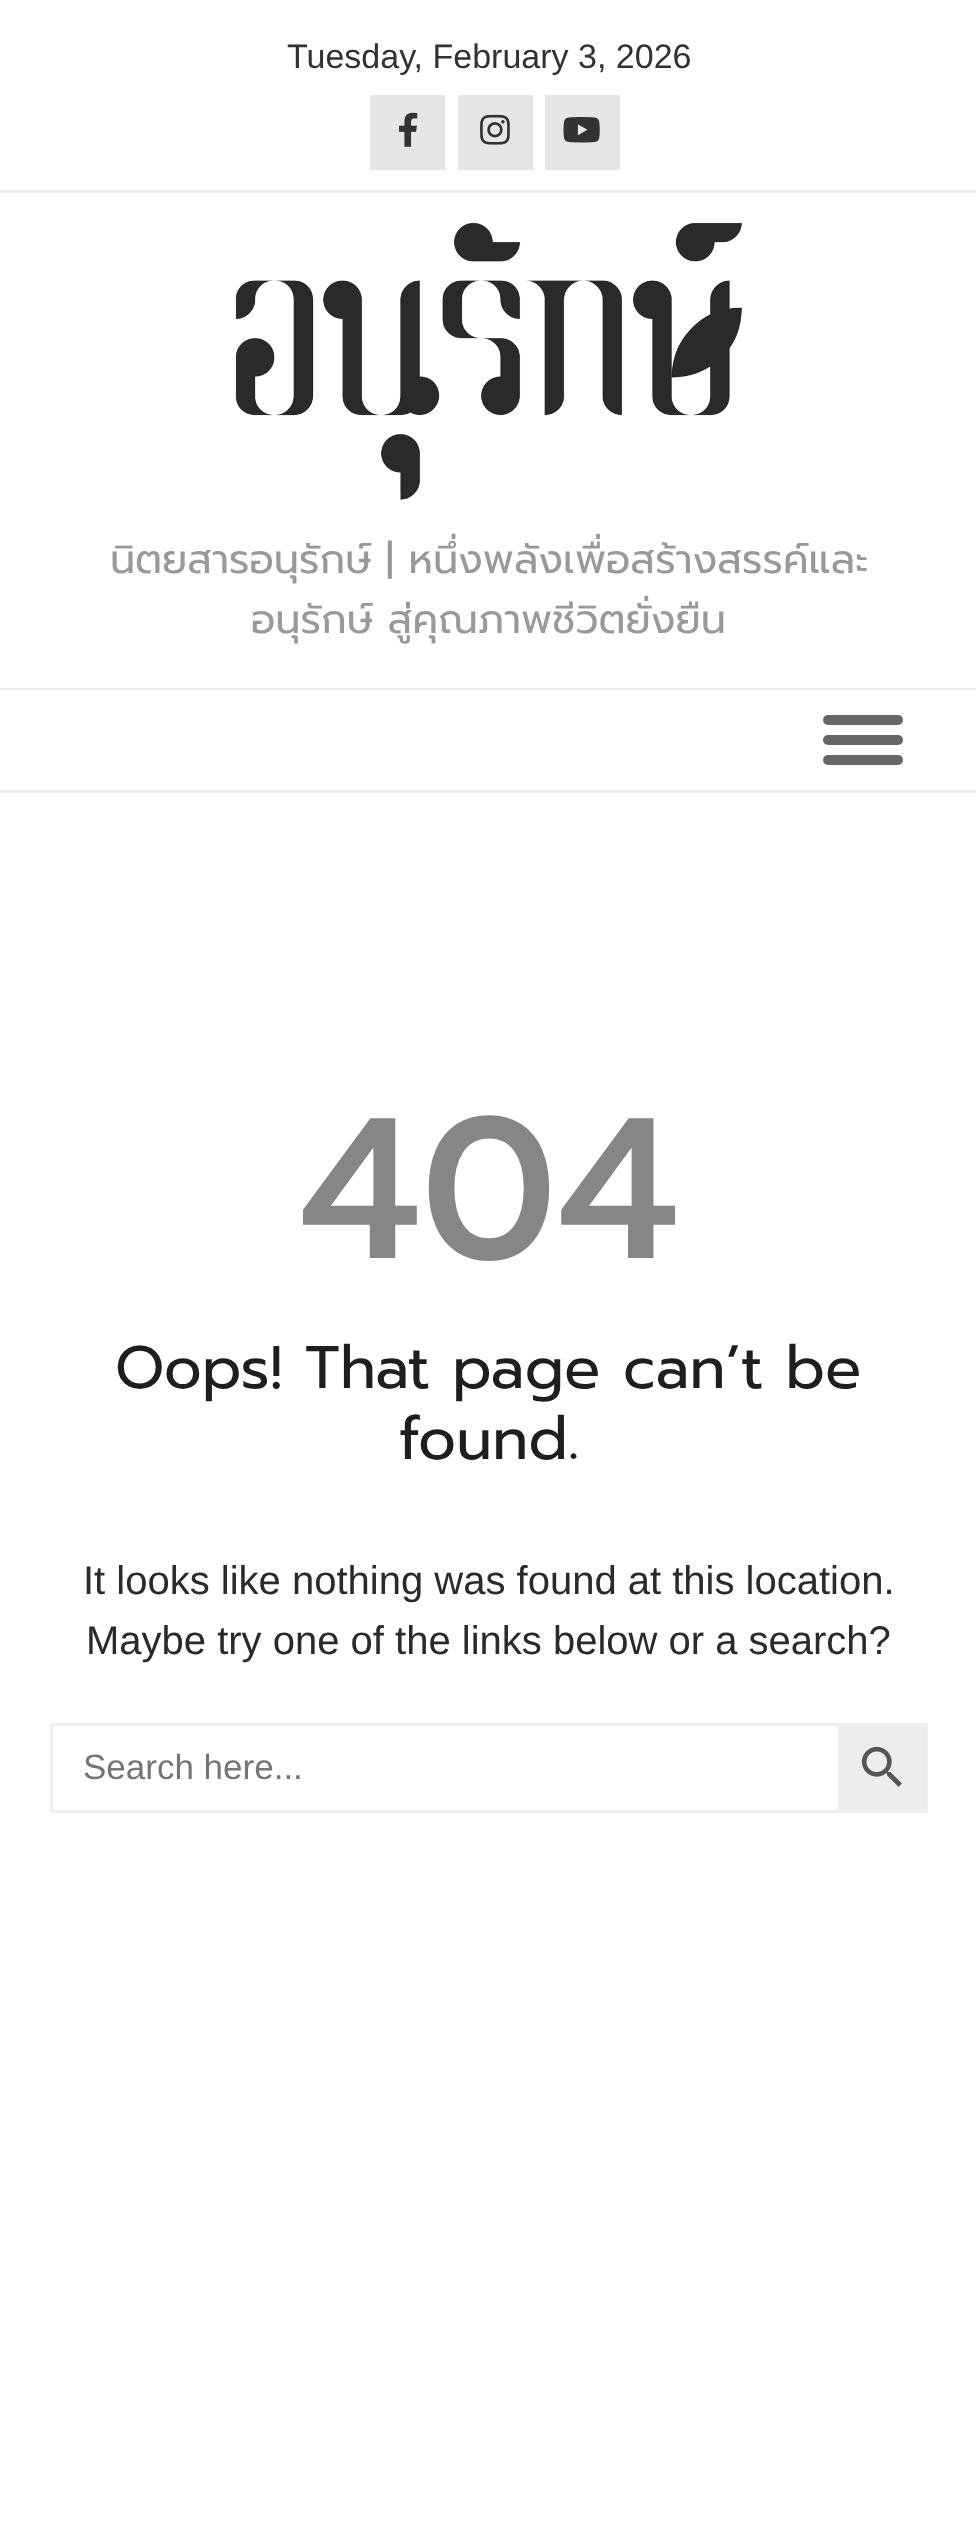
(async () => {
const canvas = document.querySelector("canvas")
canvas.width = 976
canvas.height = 2529
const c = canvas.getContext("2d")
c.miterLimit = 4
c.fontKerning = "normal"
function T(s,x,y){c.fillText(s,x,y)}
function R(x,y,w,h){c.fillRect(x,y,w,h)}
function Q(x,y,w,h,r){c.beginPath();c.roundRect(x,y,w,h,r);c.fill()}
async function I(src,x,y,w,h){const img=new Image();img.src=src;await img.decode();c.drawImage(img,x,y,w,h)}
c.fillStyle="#fff"
R(0,0,976,2529)
c.fillStyle="#ebebeb"
R(0,190,976,3)
c.font="34px Liberation Sans"
c.fillStyle="#323232"
T("Tuesday, February 3, 2026",287,68)
c.fillStyle="#e6e6e6"
R(370,95,75,75)
await I("1.png",399,112,19,35)
R(458,95,75,75)
await I("2.png",480,114,30,31)
R(545,95,75,75)
await I("3.png",563,117,37,26)
c.fillStyle="#ebebeb"
R(0,688,976,2)
await I("4.png",235,223,507,277)
c.font="40px Prompt"
c.fillStyle="#999"
T("นิตยสารอนุรักษ์ | หนึ่งพลังเพื่อสร้างสรรค์และ",110,573)
T("อนุรักษ์ สู่คุณภาพชีวิตยั่งยืน",251,633)
c.fillStyle="#ebebeb"
R(0,790,976,3)
c.fillStyle="#666"
Q(823,715,80,10,5)
Q(823,735,80,10,5)
Q(823,755,80,10,5)
c.font="500 200px Prompt"
c.fillStyle="#868686"
T("404",299,1258)
c.font="60px Prompt"
c.fillStyle="#1e1e1e"
T("Oops! That page can’t be",115,1388)
T("found.",399,1459)
c.font="40px Liberation Sans"
c.fillStyle="#2a2a2b"
T("It looks like nothing was found at this location.",83,1594)
T("Maybe try one of the links below or a search?",86,1654)
c.fillStyle="#efefef"
R(50,1723,788,3)
R(50,1810,788,3)
R(50,1723,3,90)
c.font="35px Liberation Sans"
c.fillStyle="#757575"
T("Search here...",83,1779)
c.fillStyle="#ededed"
c.beginPath()
c.rect(839.5,1724.5,87,87)
c.fill()
c.strokeStyle="#efefef"
c.lineWidth=3
c.stroke()
await I("5.png",861,1746,41,41)
})()
